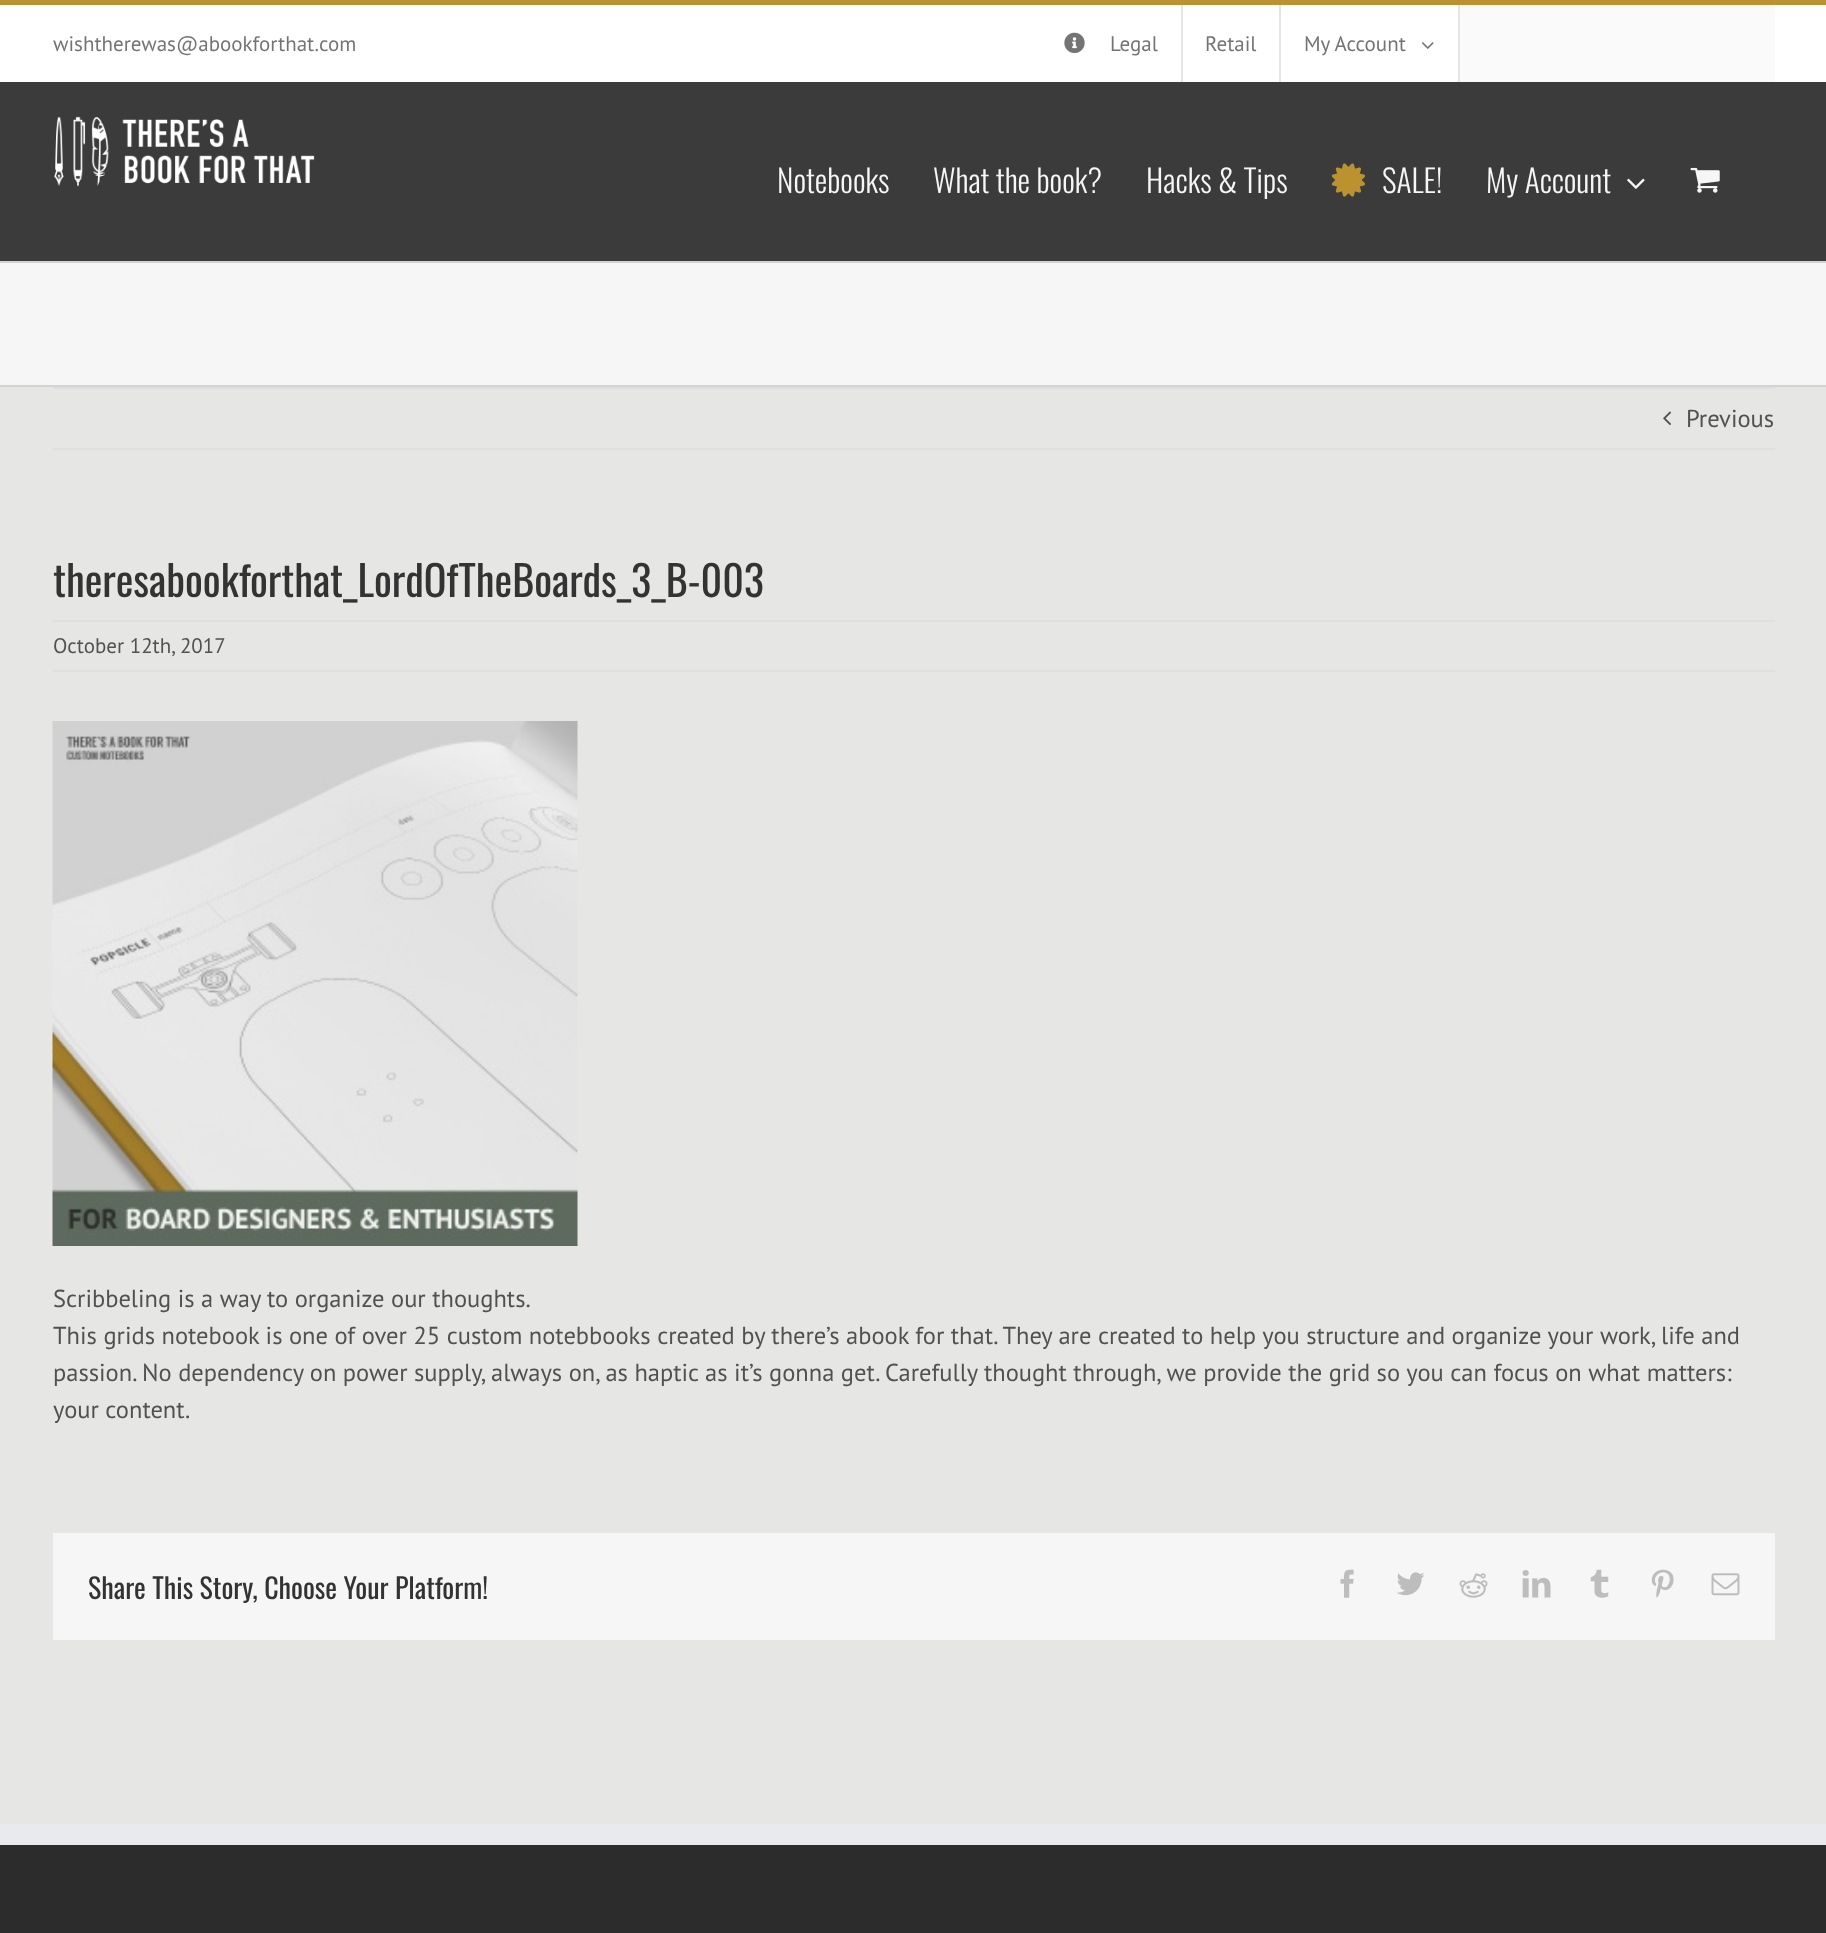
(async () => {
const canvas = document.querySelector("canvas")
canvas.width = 1826
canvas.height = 1933
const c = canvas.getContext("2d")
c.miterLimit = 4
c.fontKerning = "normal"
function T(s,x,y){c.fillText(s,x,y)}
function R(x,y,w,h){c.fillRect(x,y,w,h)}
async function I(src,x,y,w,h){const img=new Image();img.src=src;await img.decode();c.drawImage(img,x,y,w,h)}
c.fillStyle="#e6e6e4"
R(0,0,1826,1933)
c.fillStyle="#fff"
R(0,5,1826,77)
c.fillStyle="#bc9231"
R(0,0,1826,5)
c.fillStyle="#3b3b3b"
R(0,82,1826,179)
c.font="21px PT Sans"
c.fillStyle="#747474"
T("wishtherewas@abookforthat.com",53,51)
await I("1.png",1064,32,21,21)
T("Legal",1110,51)
c.fillStyle="#e5e5e5"
R(1181,5,2,77)
c.fillStyle="#747474"
T("Retail",1205,51)
c.fillStyle="#e5e5e5"
R(1279,5,2,77)
c.fillStyle="#747474"
T("My Account",1304,51)
await I("2.png",1422,42,12,7)
c.fillStyle="#e5e5e5"
R(1458,5,2,77)
c.fillStyle="#fafafa"
R(1460,5,315,77)
await I("3.png",54,116,261,71)
c.font="300 31.5px Oswald"
c.fillStyle="#f6f6f6"
T("Notebooks",777,193)
T("What the book?",933,193)
T("Hacks & Tips",1146,193)
await I("4.png",1331,163,34,34)
T("SALE!",1382,193)
T("My Account",1486,193)
await I("5.png",1627,178,18,11)
await I("6.png",1690,167,30,26)
R(0,263,1826,122)
c.fillStyle="#d2d3d4"
R(0,261,1826,2)
R(0,385,1826,2)
c.fillStyle="#e0dede"
R(53,387,1722,2)
R(53,448,1722,2)
await I("7.png",1663,411,8,15)
c.font="24.5px PT Sans"
c.fillStyle="#515151"
T("Previous",1686,427)
c.font="42px Oswald"
c.fillStyle="#333"
T("theresabookforthat_LordOfTheBoards_3_B-003",53,597)
c.fillStyle="#e0dede"
R(53,620,1722,2)
R(53,670,1722,2)
c.font="21px PT Sans"
c.fillStyle="#515151"
T("October 12th, 2017",53,653)
await I("8.png",52,721,526,525)
c.font="24.5px PT Sans"
T("Scribbeling is a way to organize our thoughts.",53,1307)
T("This grids notebook is one of over 25 custom notebbooks created by there’s abook for that. They are created to help you structure and organize your work, life and",53,1344)
T("passion. No dependency on power supply, always on, as haptic as it’s gonna get. Carefully thought through, we provide the grid so you can focus on what matters:",53,1381)
T("your content.",53,1418)
c.fillStyle="#f6f6f6"
R(53,1533,1722,107)
c.font="28px Oswald"
c.fillStyle="#333"
T("Share This Story, Choose Your Platform!",88,1599)
await I("9.png",1340,1569,14,29)
await I("10.png",1397,1572,28,24)
await I("11.png",1459,1573,29,25)
await I("12.png",1522,1570,29,28)
await I("13.png",1590,1569,19,29)
await I("14.png",1651,1569,23,29)
await I("15.png",1711,1573,29,23)
c.fillStyle="#2c2c2c"
R(0,1845,1826,88)
c.fillStyle="#e9eaee"
R(0,1824,1826,21)
})()
